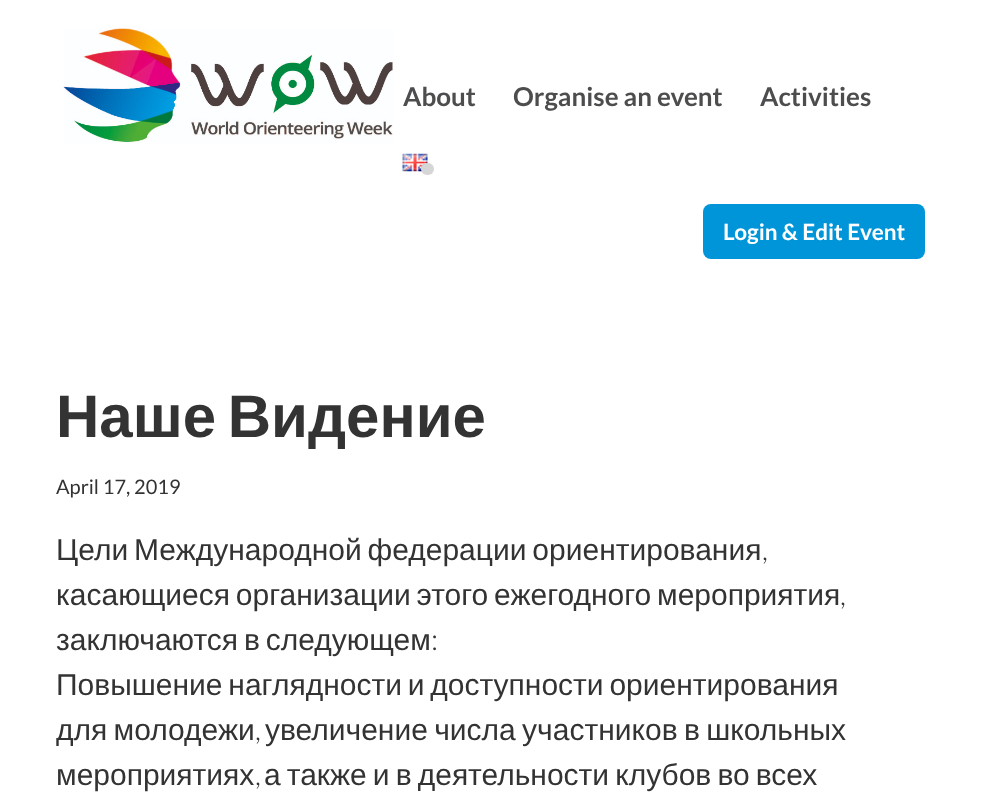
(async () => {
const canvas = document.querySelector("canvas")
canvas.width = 989
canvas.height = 804
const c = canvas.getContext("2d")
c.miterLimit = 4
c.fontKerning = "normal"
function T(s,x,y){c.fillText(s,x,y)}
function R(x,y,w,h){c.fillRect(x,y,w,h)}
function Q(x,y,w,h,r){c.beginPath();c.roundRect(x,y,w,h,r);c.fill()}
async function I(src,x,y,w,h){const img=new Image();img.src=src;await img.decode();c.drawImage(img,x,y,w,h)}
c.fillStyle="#fff"
R(0,0,989,804)
await I("1.png",63,28,330,115)
c.font="bold 26px Lato"
c.fillStyle="#4d4d4f"
T("About",403,106)
T("Organise an event",513,106)
T("Activities",760,106)
await I("2.png",402,153,26,19)
c.fillStyle="#d7d6d6"
Q(421,163,13,12,6)
c.fillStyle="#0095d9"
Q(703,204,222,55,8)
c.font="bold 22.5px Lato"
c.fillStyle="#fff"
T("Login & Edit Event",723,240)
c.wordSpacing="-5px"
c.font="bold 60px Liberation Sans"
c.fillStyle="#333"
T("Наше Видение",56,437)
c.wordSpacing="0px"
c.font="20px Lato"
T("April 17, 2019",56,494)
c.wordSpacing="-2.5px"
c.font="30px Liberation Sans"
T("Цели Международной федерации ориентирования",56,560)
c.wordSpacing="0px"
c.font="300 30px Lato"
T(",",762,560)
c.wordSpacing="-2.5px"
c.font="30px Liberation Sans"
T("касающиеся организации этого ежегодного мероприятия",56,605)
c.wordSpacing="0px"
c.font="300 30px Lato"
T(",",840,605)
c.wordSpacing="-2.5px"
c.font="30px Liberation Sans"
T("заключаются в следующем",56,650)
c.wordSpacing="0px"
c.font="300 30px Lato"
T(":",431,650)
c.wordSpacing="-2.5px"
c.font="30px Liberation Sans"
T("Повышение наглядности и доступности ориентирования",56,695)
c.wordSpacing="-2px"
T("для молодежи",56,740)
c.wordSpacing="0px"
c.font="300 30px Lato"
T(",",255,740)
c.wordSpacing="-2px"
c.font="30px Liberation Sans"
T("увеличение числа участников в школьных",265,740)
c.wordSpacing="0px"
T("мероприятиях",56,785)
c.font="300 30px Lato"
T(",",255,785)
c.wordSpacing="-2.25px"
c.font="30px Liberation Sans"
T("а также и в деятельности клубов во всех",264,785)
})()
